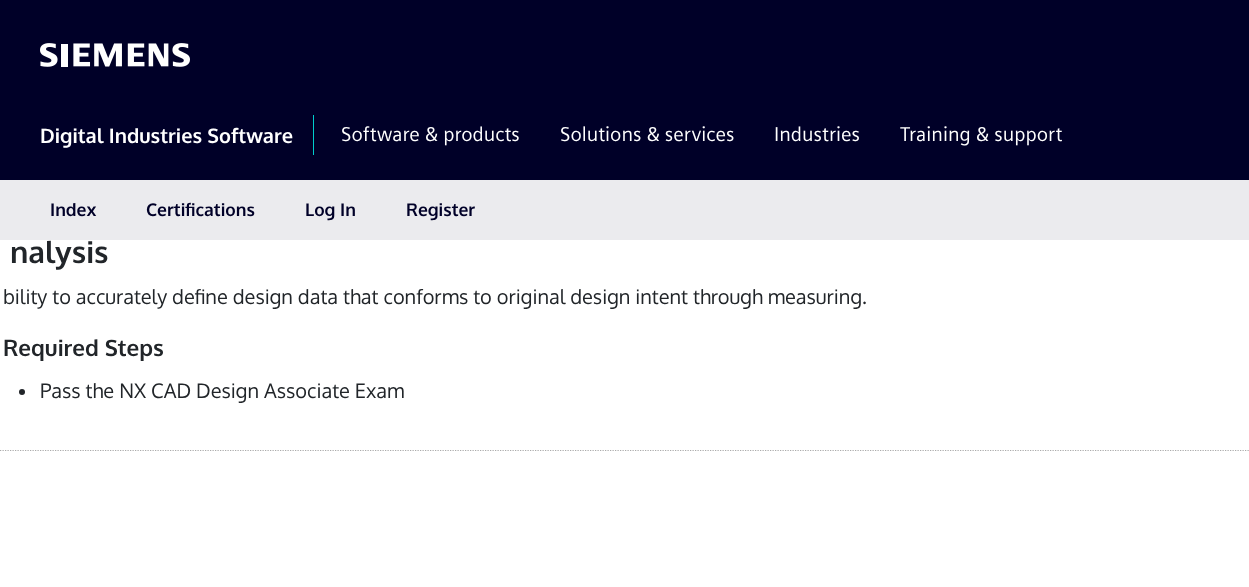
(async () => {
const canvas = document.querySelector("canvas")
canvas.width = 1249
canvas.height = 587
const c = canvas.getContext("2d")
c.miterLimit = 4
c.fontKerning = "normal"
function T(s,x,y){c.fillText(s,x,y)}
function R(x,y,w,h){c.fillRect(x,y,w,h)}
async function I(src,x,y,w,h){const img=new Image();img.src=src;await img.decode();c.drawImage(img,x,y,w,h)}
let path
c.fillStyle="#fff"
R(0,0,1249,587)
c.fillStyle="#000028"
R(0,0,1249,180)
await I("1.png",40,43,150,24)
c.fillStyle="#0cc"
R(313,115,1,40)
c.font="bold 20px Oxygen"
c.fillStyle="#fff"
T("Digital Industries Software",40,143)
c.font="20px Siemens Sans"
T("Software & products",341,141)
T("Solutions & services",560,141)
T("Industries",774,141)
T("Training & support",900,141)
c.fillStyle="#ebebee"
R(0,180,1249,60)
c.font="bold 17.5px Oxygen"
c.fillStyle="#000028"
T("Index",50,216)
T("Certifications",146,216)
T("Log In",305,216)
T("Register",406,216)
path = new Path2D("M-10 450.5h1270")
c.strokeStyle="#aaa"
c.lineWidth=1.2
c.setLineDash([1.25,1.25])
c.stroke(path)
c.font="bold 30px Oxygen"
c.fillStyle="#212529"
T("nalysis",10,263)
c.font="20px Oxygen"
T("bility to accurately define design data that conforms to original design intent through measuring.",3,304)
c.font="bold 22.5px Oxygen"
T("Required Steps",3,356)
c.beginPath()
c.arc(22,392,3,0,7)
c.fill()
c.font="20px Oxygen"
T("Pass the NX CAD Design Associate Exam",40,398)
})()
